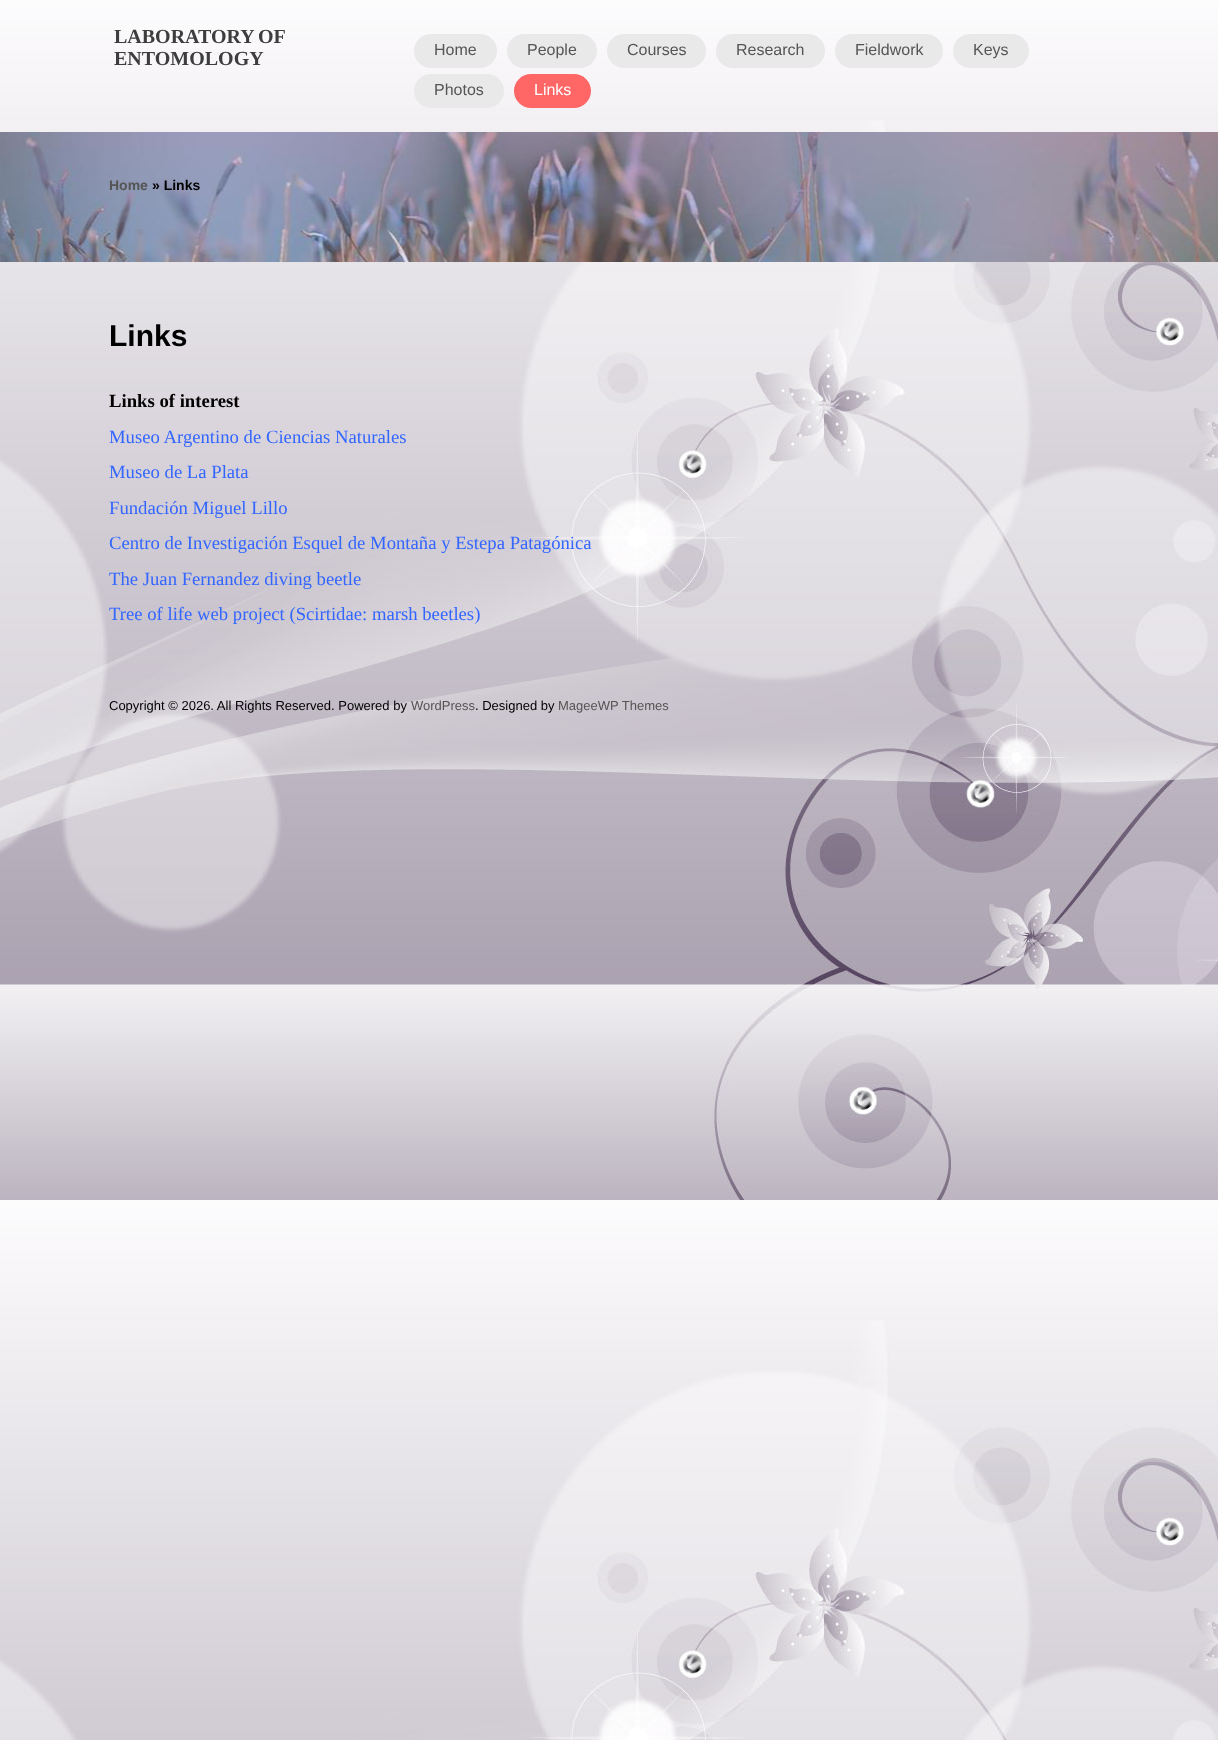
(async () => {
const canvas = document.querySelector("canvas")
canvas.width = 1218
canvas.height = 1740
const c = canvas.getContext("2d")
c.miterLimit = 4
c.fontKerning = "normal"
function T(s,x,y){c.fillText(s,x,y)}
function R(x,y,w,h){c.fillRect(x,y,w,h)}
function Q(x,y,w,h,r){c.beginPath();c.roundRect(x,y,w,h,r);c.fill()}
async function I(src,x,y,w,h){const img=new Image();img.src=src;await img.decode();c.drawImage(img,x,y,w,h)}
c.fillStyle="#fff"
R(0,0,1218,1740)
await I("1.png",0,0,1218,1740)
c.wordSpacing="-1px"
c.font="bold 20px Liberation Serif"
c.fillStyle="#3d3d3d"
T("LABORATORY OF",114,43)
c.wordSpacing="0px"
T("ENTOMOLOGY",114,65)
c.fillStyle="#e9e9e9"
Q(414,34,83,34,17)
c.font="16px Liberation Sans"
c.fillStyle="#555"
T("Home",434,55)
c.fillStyle="#e9e9e9"
Q(507,34,90,34,17)
c.fillStyle="#555"
T("People",527,55)
c.fillStyle="#e9e9e9"
Q(607,34,99,34,17)
c.fillStyle="#555"
T("Courses",627,55)
c.fillStyle="#e9e9e9"
Q(716,34,109,34,17)
c.fillStyle="#555"
T("Research",736,55)
c.fillStyle="#e9e9e9"
Q(835,34,108,34,17)
c.fillStyle="#555"
T("Fieldwork",855,55)
c.fillStyle="#e9e9e9"
Q(953,34,76,34,17)
c.fillStyle="#555"
T("Keys",973,55)
c.fillStyle="#e9e9e9"
Q(414,74,90,34,17)
c.fillStyle="#555"
T("Photos",434,95)
c.fillStyle="#f66"
Q(514,74,77,34,17)
c.fillStyle="#fff"
T("Links",534,95)
await I("2.png",0,132,1218,130)
c.font="bold 14px Liberation Sans"
c.fillStyle="#555"
T("Home",109,190)
c.fillStyle="#000"
T("» Links",152,190)
c.font="bold 30px Liberation Sans"
T("Links",109,346)
c.font="bold 18.7px Liberation Serif"
T("Links of interest",109,407)
c.font="18.7px Liberation Serif"
c.fillStyle="#36f"
T("Museo Argentino de Ciencias Naturales",109,443)
T("Museo de La Plata",109,478)
T("Fundación Miguel Lillo",109,514)
T("Centro de Investigación Esquel de Montaña y Estepa Patagónica",109,549)
T("The Juan Fernandez diving beetle",109,585)
T("Tree of life web project (Scirtidae: marsh beetles)",109,620)
c.font="13px Liberation Sans"
c.fillStyle="#000"
T("Copyright © 2026. All Rights Reserved. Powered by",109,710)
c.fillStyle="#555"
T("WordPress",411,710)
c.fillStyle="#000"
T(". Designed by",475,710)
c.fillStyle="#555"
T("MageeWP Themes",558,710)
})()
